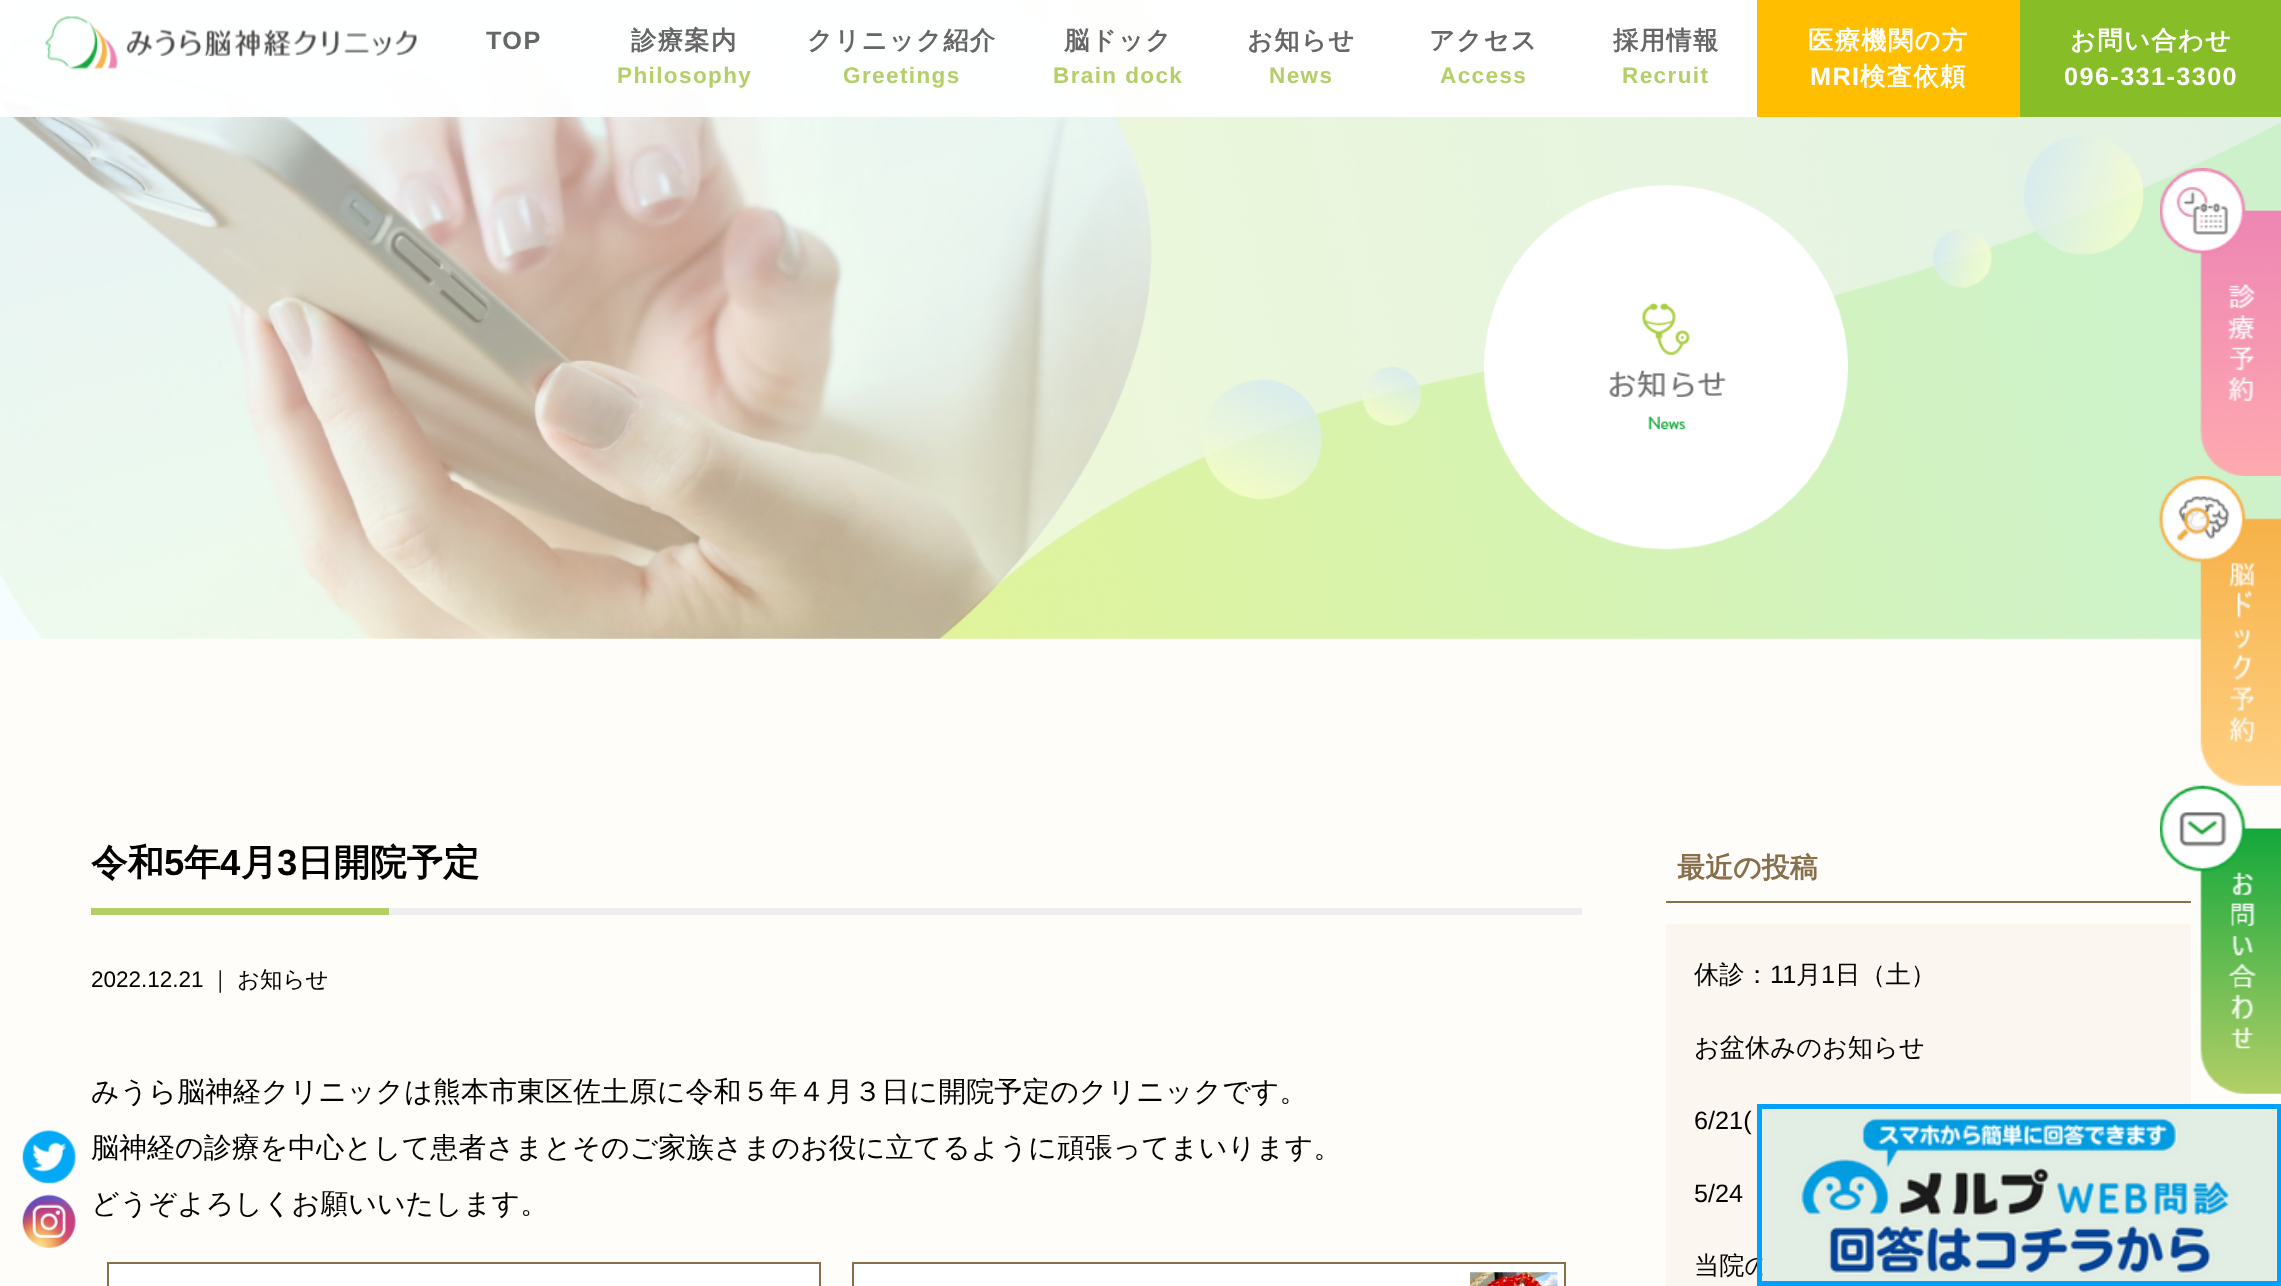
(async () => {
const canvas = document.querySelector("canvas")
canvas.width = 2281
canvas.height = 1286
const c = canvas.getContext("2d")
c.miterLimit = 4
c.fontKerning = "normal"
function T(s,x,y){c.fillText(s,x,y)}
function R(x,y,w,h){c.fillRect(x,y,w,h)}
async function I(src,x,y,w,h){const img=new Image();img.src=src;await img.decode();c.drawImage(img,x,y,w,h)}
c.fillStyle="#fffdf9"
R(0,0,2281,1286)
await I("2.png",0,0,2281,639)
c.fillStyle="#fffffff2"
R(0,0,1757,117)
await I("1.png",45,16,372,54)
c.letterSpacing="1.4px"
c.font="bold 25.25px Liberation Sans"
c.fillStyle="#666"
T("TOP",486,49)
c.font="bold 25.25px WenQuanYi Zen Hei"
T("診療案内",631,49)
c.font="bold 22.5px Liberation Sans"
c.fillStyle="#b4cf68"
T("Philosophy",617,83)
c.font="bold 25.25px WenQuanYi Zen Hei"
c.fillStyle="#666"
T("クリニック紹介",807,49)
c.font="bold 22.5px Liberation Sans"
c.fillStyle="#b4cf68"
T("Greetings",843,83)
c.font="bold 25.25px WenQuanYi Zen Hei"
c.fillStyle="#666"
T("脳ドック",1064,49)
c.font="bold 22.5px Liberation Sans"
c.fillStyle="#b4cf68"
T("Brain dock",1053,83)
c.font="bold 25.25px WenQuanYi Zen Hei"
c.fillStyle="#666"
T("お知らせ",1247,49)
c.font="bold 22.5px Liberation Sans"
c.fillStyle="#b4cf68"
T("News",1269,83)
c.font="bold 25.25px WenQuanYi Zen Hei"
c.fillStyle="#666"
T("アクセス",1429,49)
c.font="bold 22.5px Liberation Sans"
c.fillStyle="#b4cf68"
T("Access",1440,83)
c.font="bold 25.25px WenQuanYi Zen Hei"
c.fillStyle="#666"
T("採用情報",1613,49)
c.font="bold 22.5px Liberation Sans"
c.fillStyle="#b4cf68"
T("Recruit",1622,83)
c.fillStyle="#ffbf00"
R(1757,0,263,117)
c.font="bold 25.25px WenQuanYi Zen Hei"
c.fillStyle="#fff"
T("医療機関の方",1808,49)
c.font="bold 25.25px Liberation Sans"
T("MRI",1810,85)
c.font="bold 25.25px WenQuanYi Zen Hei"
T("検査依頼",1860,85)
c.fillStyle="#87bd27"
R(2020,0,261,117)
c.fillStyle="#fff"
T("お問い合わせ",2070,49)
c.font="bold 25.25px Liberation Sans"
T("096-331-3300",2064,85)
await I("3.png",1484,185,364,365)
c.fillStyle="#eee"
R(389,908,1193,7)
c.letterSpacing="0px"
c.font="bold 36.5px WenQuanYi Zen Hei"
c.fillStyle="#000"
T("令和",91,875)
c.font="bold 36.5px Liberation Sans"
T("5",164,875)
c.font="bold 36.5px WenQuanYi Zen Hei"
T("年",184,875)
c.font="bold 36.5px Liberation Sans"
T("4",220,875)
c.font="bold 36.5px WenQuanYi Zen Hei"
T("月",241,875)
c.font="bold 36.5px Liberation Sans"
T("3",277,875)
c.font="bold 36.5px WenQuanYi Zen Hei"
T("日開院予定",297,875)
c.fillStyle="#b4cf68"
R(91,908,298,7)
c.font="22.5px Liberation Sans"
c.fillStyle="#000"
T("2022.12.21",91,987)
c.font="500 22.5px WenQuanYi Zen Hei"
T("｜",209,987)
T("お知らせ",237,987)
c.font="500 28px WenQuanYi Zen Hei"
T("みうら脳神経クリニックは熊本市東区佐土原に令和５年４月３日に開院予定のクリニックです。",91,1101)
T("脳神経の診療を中心として患者さまとそのご家族さまのお役に立てるように頑張ってまいります。",91,1157)
T("どうぞよろしくお願いいたします。",91,1213)
c.fillStyle="#fff"
c.beginPath()
c.rect(108,1263,712,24)
c.fill()
c.strokeStyle="#886f4c"
c.lineWidth=2
c.stroke()
c.beginPath()
c.rect(853,1263,712,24)
c.fill()
c.stroke()
await I("4.png",1470,1272,88,14)
c.fillStyle="#886f4c"
R(1666,901,525,2)
c.font="bold 28px WenQuanYi Zen Hei"
T("最近の投稿",1677,877)
c.fillStyle="#fbf6ef"
R(1666,924,525,362)
c.font="500 25.25px WenQuanYi Zen Hei"
c.fillStyle="#000"
T("休診：",1694,983)
c.font="25.25px Liberation Sans"
T("11",1770,983)
c.font="500 25.25px WenQuanYi Zen Hei"
T("月",1796,983)
c.font="25.25px Liberation Sans"
T("1",1821,983)
c.font="500 25.25px WenQuanYi Zen Hei"
T("日（土）",1835,983)
T("お盆休みのお知らせ",1694,1056)
c.font="25.25px Liberation Sans"
T("6/21(",1694,1129)
T("5/24",1694,1202)
c.font="500 25.25px WenQuanYi Zen Hei"
T("当院の",1694,1274)
await I("5.png",2160,168,121,308)
await I("6.png",2159,476,122,310)
await I("7.png",2160,785,121,309)
await I("8.png",22,1129,54,55)
await I("9.png",22,1194,54,54)
c.strokeStyle="#01a0ff"
c.lineWidth=5
c.strokeRect(1759.5,1106.5,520,177)
await I("10.png",1762,1109,515,172)
})()
